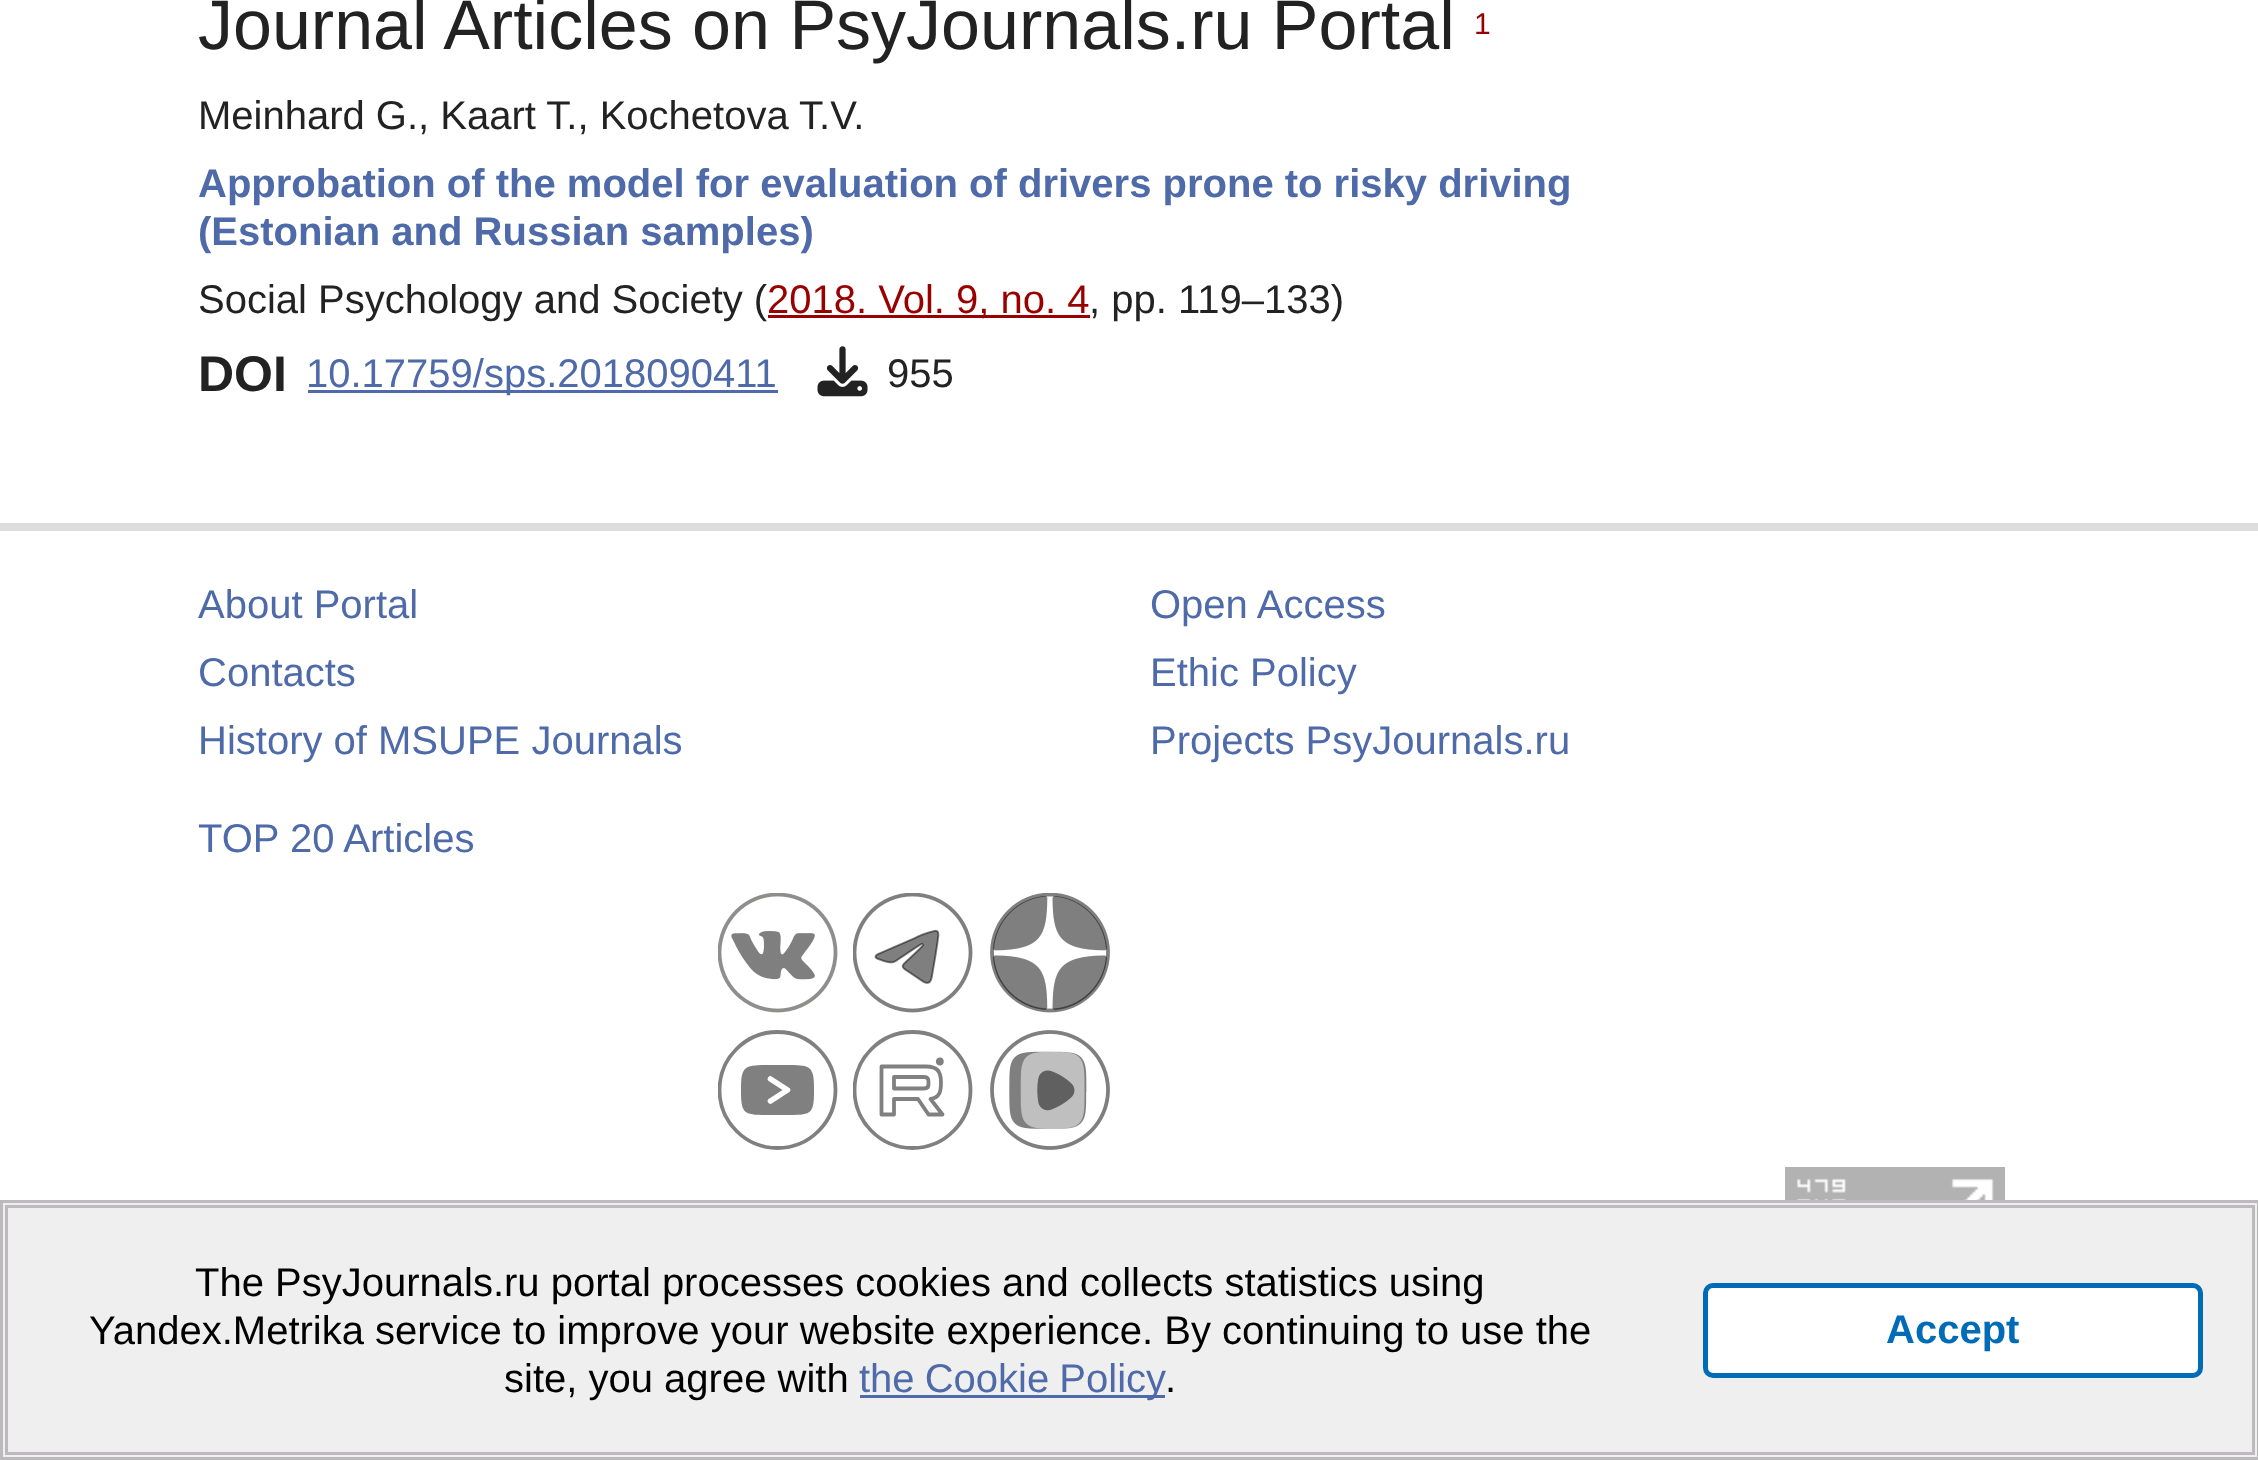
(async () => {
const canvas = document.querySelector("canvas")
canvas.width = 2258
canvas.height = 1460
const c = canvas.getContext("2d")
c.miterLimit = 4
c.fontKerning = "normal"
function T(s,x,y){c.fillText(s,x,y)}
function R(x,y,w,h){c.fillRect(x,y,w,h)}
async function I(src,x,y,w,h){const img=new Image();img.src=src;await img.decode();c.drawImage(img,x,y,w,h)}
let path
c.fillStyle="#fff"
R(0,0,2258,1460)
c.font="70px Liberation Sans"
c.fillStyle="#222"
T("Journal Articles on PsyJournals.ru Portal",198,49)
c.font="30px Liberation Sans"
c.fillStyle="#900"
T("1",1474,34)
c.font="40px Liberation Sans"
c.fillStyle="#222"
T("Meinhard G., Kaart T., Kochetova T.V.",198,129)
c.font="bold 40px Liberation Sans"
c.fillStyle="#4e6aa9"
T("Approbation of the model for evaluation of drivers prone to risky driving",198,197)
T("(Estonian and Russian samples)",198,245)
c.font="40px Liberation Sans"
c.fillStyle="#222"
T("Social Psychology and Society (",198,313)
c.fillStyle="#900"
R(768,315,322,3)
T("2018. Vol. 9, no. 4",767,313)
c.fillStyle="#222"
T(", pp. 119–133)",1089,313)
c.font="bold 50px Liberation Sans"
T("DOI",198,391)
c.fillStyle="#4e6aa9"
R(308,390,470,3)
c.font="40px Liberation Sans"
T("10.17759/sps.2018090411",306,387)
await I("1.png",817,346,51,51)
c.fillStyle="#222"
T("955",887,387)
c.fillStyle="#ddd"
R(0,523,2258,8)
c.fillStyle="#4e6aa9"
T("About Portal",198,618)
T("Contacts",198,686)
T("History of MSUPE Journals",198,754)
T("Open Access",1150,618)
T("Ethic Policy",1150,686)
T("Projects PsyJournals.ru",1150,754)
T("TOP 20 Articles",198,852)
await I("2.png",718,893,120,120)
await I("3.png",853,893,120,120)
await I("4.png",990,893,120,120)
c.save()
c.beginPath()
c.rect(718,1030,120,120)
c.clip()
c.beginPath()
c.arc(777.5,1090,58,0,7)
c.strokeStyle="#808080"
c.lineWidth=3.8
c.stroke()
c.restore()
c.save()
c.beginPath()
c.rect(853,1030,120,120)
c.clip()
c.beginPath()
c.arc(912.5,1090,58,0,7)
c.strokeStyle="#808080"
c.lineWidth=3.8
c.stroke()
c.restore()
await I("5.png",990,1030,120,120)
path = new Path2D("M926 1066.5h-44.5v48h12.5v-15.5h24l10.5 15.5h14l-12-15.5c9.5-1.5 10.5-8 10.5-16.5c0-11-3.5-16-15-16zm-2 22h-30v-11.5h30c5 0 4.5 3.5 4.5 7.5c0 3-2 4-4.5 4z")
c.strokeStyle="#808080"
c.lineWidth=3.8
c.lineCap="round"
c.lineJoin="round"
c.stroke(path)
c.fillStyle="#808080"
path = new Path2D("M940 1065.5c5 0 5-8 0-8c-5.5 0-5.5 8 0 8z")
c.fill(path)
path = new Path2D("M814 1090c0-22-2-25-24-25h-24c-23 0-25 3-25 25c0 23 2 25 25 25h24c22 0 24-2 24-25z")
c.fill(path)
path = new Path2D("M770.5 1079l17 11l-17 11")
c.strokeStyle="#fff"
c.lineWidth=5.6
c.stroke(path)
await I("6.png",1785,1167,220,33)
c.fillStyle="#efefef"
c.beginPath()
c.rect(1.5,1201.5,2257,257)
c.fill()
c.strokeStyle="#bdbabd"
c.lineWidth=3
c.lineJoin="miter"
c.stroke()
c.strokeRect(6.5,1206.5,2247,247)
c.fillStyle="#000"
T("The PsyJournals.ru portal processes cookies and collects statistics using",195,1296)
T("Yandex.Metrika service to improve your website experience. By continuing to use the",89,1344)
T("site, you agree with",504,1392)
c.fillStyle="#4e6aa9"
R(860,1395,305,3)
c.wordSpacing="-1px"
T("the Cookie Policy",859,1392)
c.wordSpacing="0px"
c.fillStyle="#000"
T(".",1165,1392)
c.fillStyle="#fff"
c.beginPath()
c.roundRect(1705.5,1285.5,495,90,7.5)
c.fill()
c.strokeStyle="#006cb7"
c.lineWidth=5
c.stroke()
c.font="bold 40px Liberation Sans"
c.fillStyle="#006cb7"
T("Accept",1886,1343)
})()
